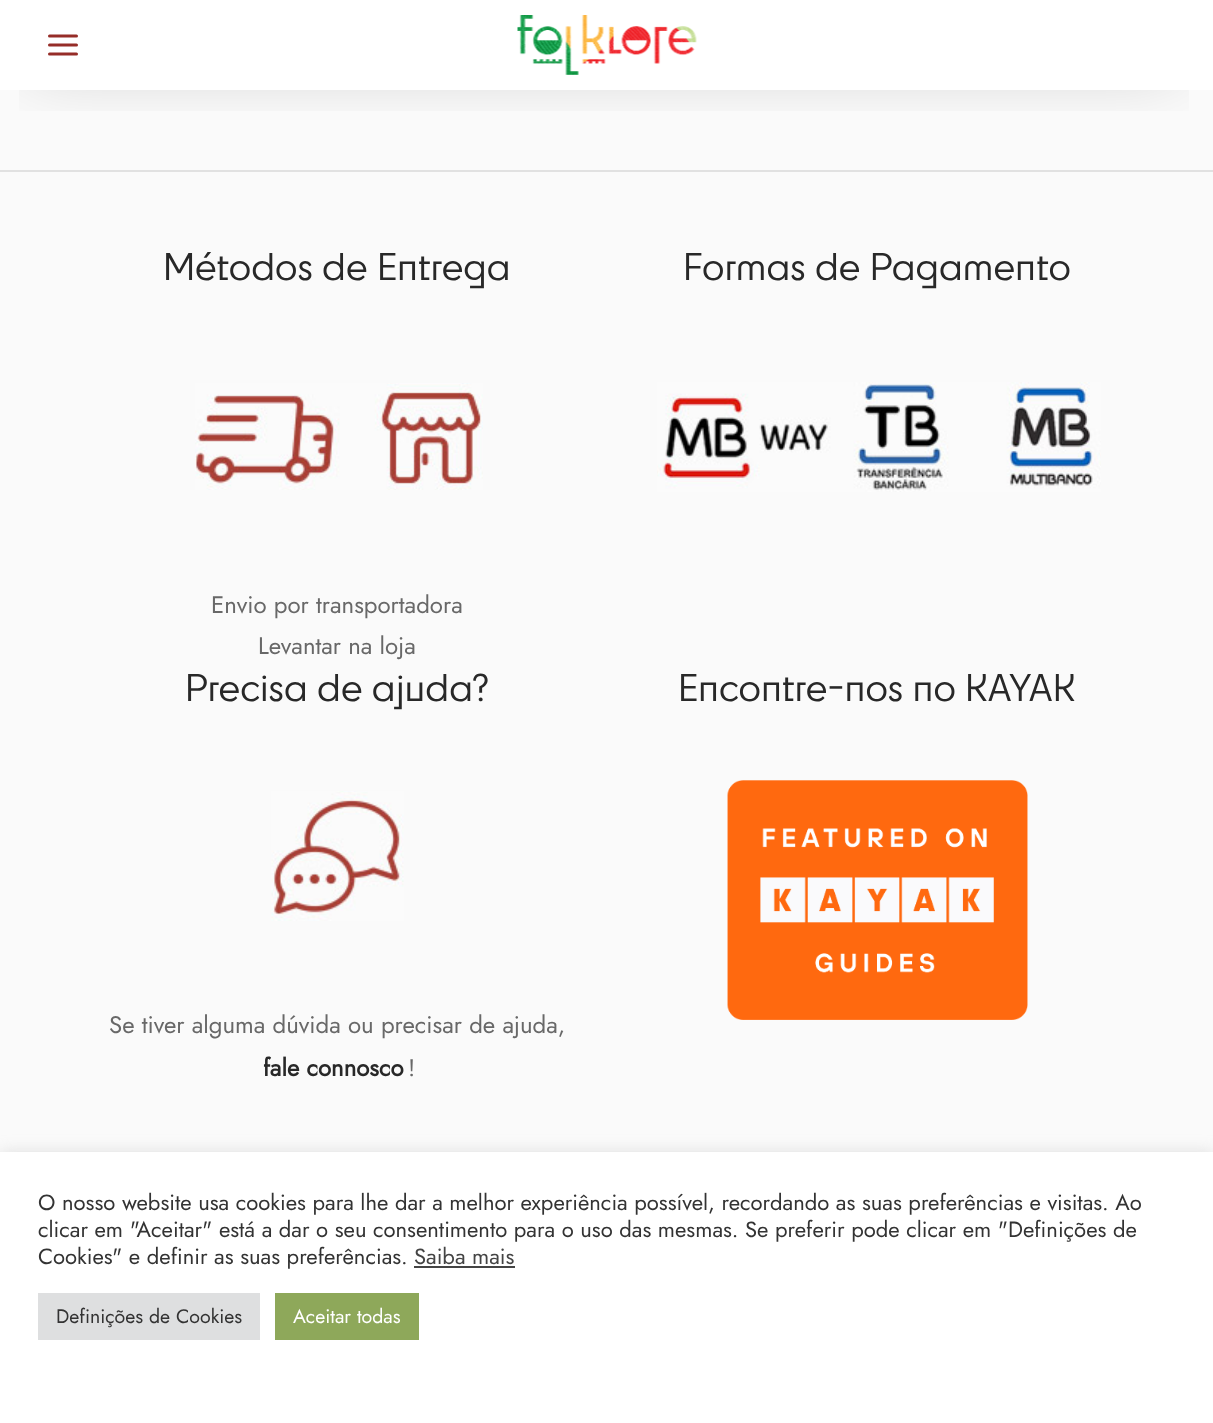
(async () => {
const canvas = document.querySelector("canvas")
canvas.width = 1213
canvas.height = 1423
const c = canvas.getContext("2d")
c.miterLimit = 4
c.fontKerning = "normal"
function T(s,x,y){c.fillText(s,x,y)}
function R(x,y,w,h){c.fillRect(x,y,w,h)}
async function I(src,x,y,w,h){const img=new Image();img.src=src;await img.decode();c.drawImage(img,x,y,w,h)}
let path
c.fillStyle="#fafafa"
R(0,0,1213,1423)
c.fillStyle="#fff"
R(0,0,1213,90)
c.save()
c.beginPath()
c.rect(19,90,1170,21)
c.clip()
c.fillStyle="#0000004d"
c.filter="blur(34px)"
c.beginPath()
c.rect(27,33,1154,30)
c.fill()
c.filter="none"
c.restore()
path = new Path2D("M49.5 45h27m-27-9h27m-27 18h27")
c.strokeStyle="#962d28"
c.lineWidth=3
c.lineCap="round"
c.lineJoin="round"
c.stroke(path)
await I("1.png",517,15,180,60)
c.fillStyle="#e1e1e1"
R(0,170,1213,2)
c.font="36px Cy"
c.fillStyle="#282828"
T("Métodos de Entrega",163,280)
await I("2.png",195,383,288,107)
c.font="24px Jost"
c.fillStyle="#686868"
T("Envio por transportadora",211,613)
T("Levantar na loja",258,654)
c.font="36px Cy"
c.fillStyle="#282828"
T("Formas de Pagamento",683,280)
await I("3.png",657,382,444,110)
T("Precisa de ajuda?",185,701)
await I("4.png",271,791,133,130)
c.font="24px Jost"
c.fillStyle="#686868"
T("Se tiver alguma dúvida ou precisar de ajuda,",109,1033)
c.font="bold 24px Jost"
c.fillStyle="#282828"
T("fale connosco",263,1076)
c.font="24px Jost"
c.fillStyle="#686868"
T("!",408,1076)
c.font="36px Cy"
c.fillStyle="#282828"
T("Encontre-nos no KAYAK",678,701)
await I("5.png",727,780,301,240)
c.fillStyle="#acabab4d"
c.filter="blur(7.5px)"
c.beginPath()
c.rect(0,1151,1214,271)
c.fill()
c.filter="none"
c.fillStyle="#fff"
R(0,1152,1213,271)
c.font="22px Jost"
c.fillStyle="#333"
T("O nosso website usa cookies para lhe dar a melhor experiência possível, recordando as suas preferências e visitas. Ao",38,1210)
T("clicar em \"Aceitar\" está a dar o seu consentimento para o uso das mesmas. Se preferir pode clicar em \"Definições de",38,1237)
T("Cookies\" e definir as suas preferências.",38,1264)
c.fillStyle="#444"
T("Saiba mais",414,1264)
R(414,1266,101,2)
c.fillStyle="#dedfe0"
R(38,1293,222,47)
c.font="19.5px Jost"
c.fillStyle="#333"
T("Definições de Cookies",56,1323)
c.fillStyle="#8ea85a"
R(275,1293,144,47)
c.fillStyle="#fff"
T("Aceitar todas",293,1323)
})()
